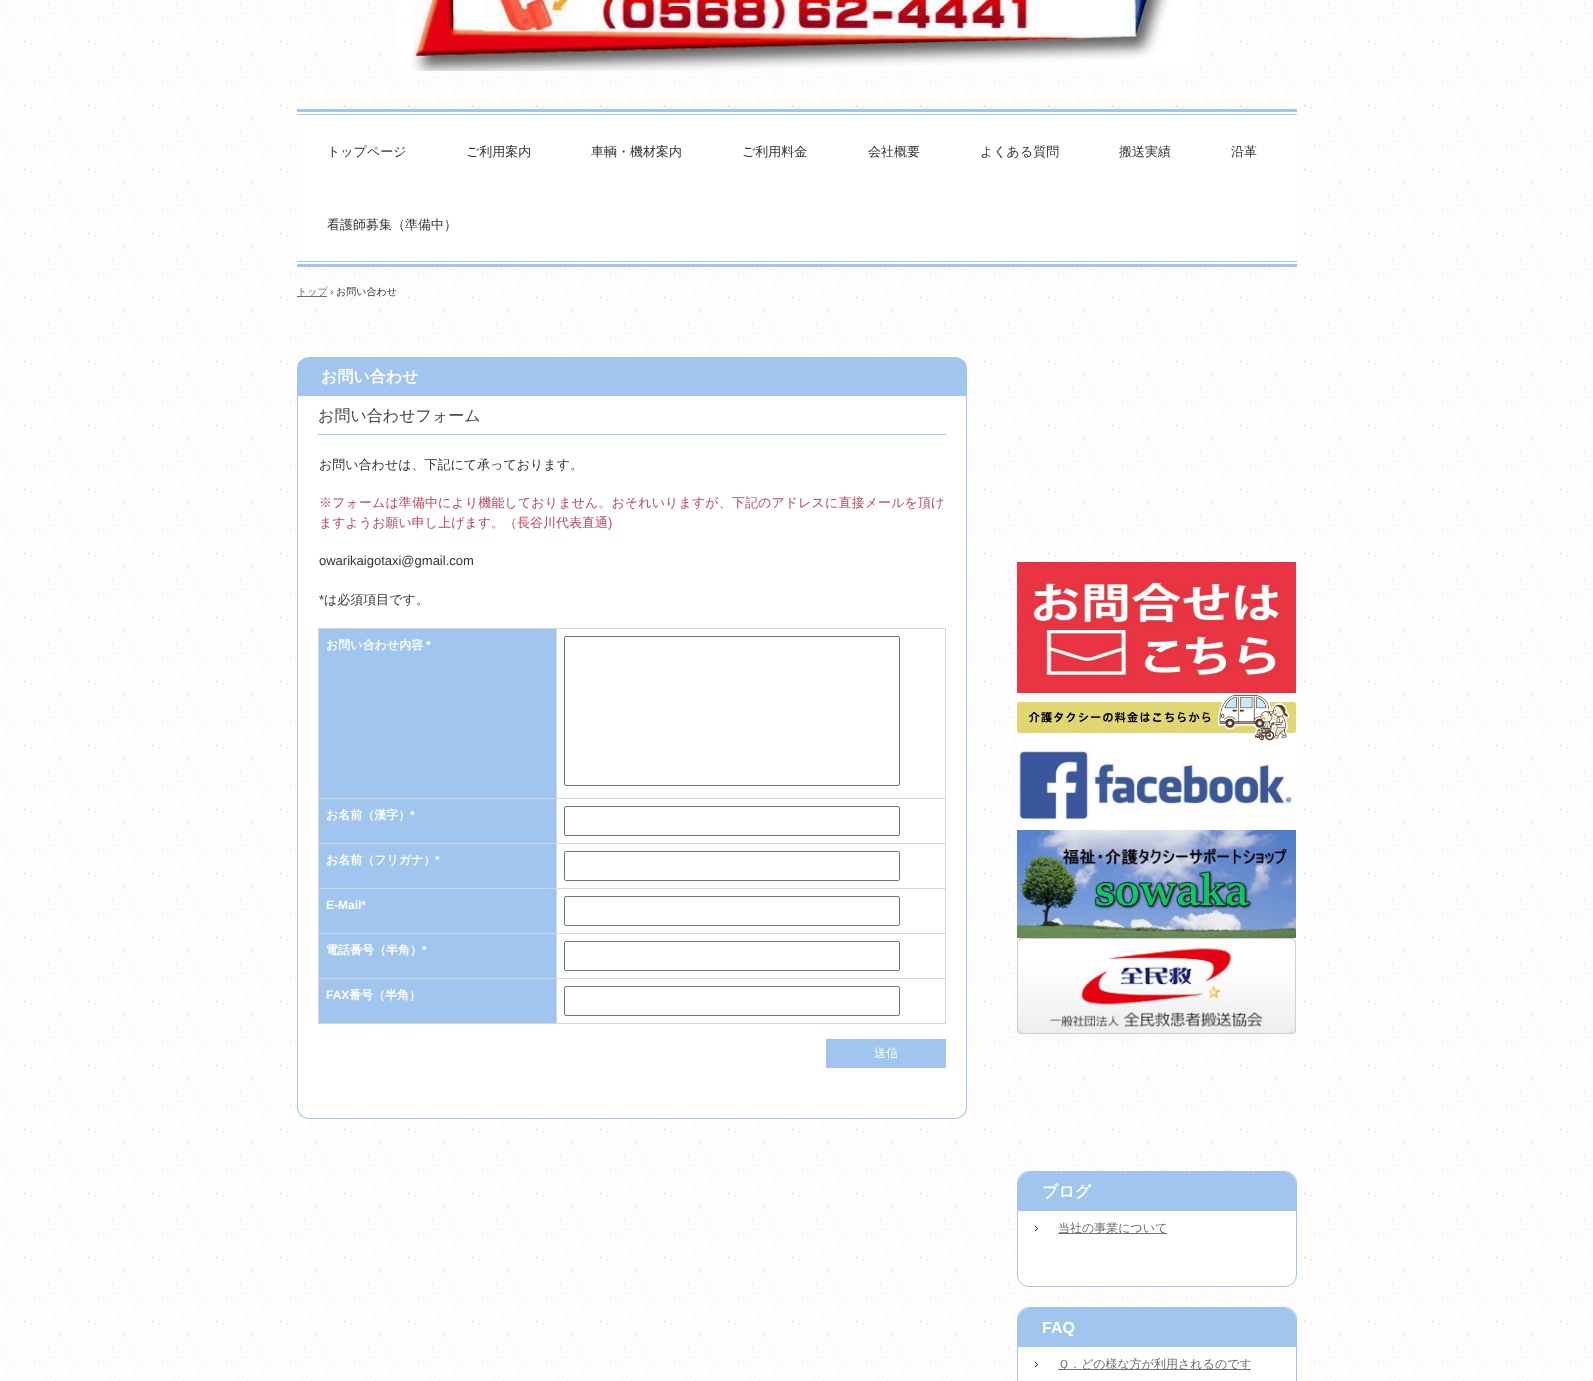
(async () => {
const canvas = document.querySelector("canvas")
canvas.width = 1593
canvas.height = 1381
const c = canvas.getContext("2d")
c.miterLimit = 4
c.fontKerning = "normal"
function T(s,x,y){c.fillText(s,x,y)}
function R(x,y,w,h){c.fillRect(x,y,w,h)}
async function I(src,x,y,w,h){const img=new Image();img.src=src;await img.decode();c.drawImage(img,x,y,w,h)}
let path
c.fillStyle="#fff"
R(0,0,1593,1381)
await I("1.png",0,0,1593,1381)
await I("2.png",396,0,802,71)
R(297,112,1000,152)
c.fillStyle="#a0c5ef"
R(297,109,1000,3)
R(297,264,1000,3)
R(297,114,1000,1)
R(297,261,1000,1)
c.font="500 13px WenQuanYi Zen Hei"
c.fillStyle="#333"
T("トップページ",327,156)
T("ご利用案内",466,156)
T("車輌・機材案内",591,156)
T("ご利用料金",742,156)
T("会社概要",868,156)
T("よくある質問",980,156)
T("搬送実績",1119,156)
T("沿革",1231,156)
T("看護師募集（準備中）",327,229)
c.fillStyle="#6e6e6e"
R(297,296,30,1)
c.font="500 10px WenQuanYi Zen Hei"
T("トップ",297,295)
c.font="10px Liberation Sans"
c.fillStyle="#333"
T("›",330,295)
c.font="500 10px WenQuanYi Zen Hei"
T("お問い合わせ",336,295)
c.fillStyle="#a0c5ef"
c.beginPath()
c.roundRect(297,357,670,39,[12,12,0,0])
c.fill()
c.font="bold 16px WenQuanYi Zen Hei"
c.fillStyle="#fff"
T("お問い合わせ",321,382)
c.beginPath()
c.roundRect(297,396,670,723,[0,0,12,12])
c.fill()
c.fillStyle="#a0c5ef"
path = new Path2D("M297 396h670v711c0 7-5 12-12 12h-646c-7 0-12-5-12-12zm1 0h668v711c0 6-5 11-11 11h-646c-6 0-11-5-11-11z")
c.fill(path,"evenodd")
R(318,434,628,1)
c.font="500 16px WenQuanYi Zen Hei"
c.fillStyle="#444"
T("お問い合わせフォーム",318,421)
c.font="500 13px WenQuanYi Zen Hei"
c.fillStyle="#333"
T("お問い合わせは、下記にて承っております。",319,469)
c.letterSpacing="0.1px"
c.fillStyle="#bf455b"
T("※フォームは準備中により機能しておりません。おそれいりますが、下記のアドレスに直接メールを頂け",319,507)
c.letterSpacing="0px"
T("ますようお願い申し上げます。（長谷川代表直通",319,527)
c.font="13px Liberation Sans"
T(")",608,527)
c.fillStyle="#333"
T("owarikaigotaxi@gmail.com",319,565)
T("*",319,604)
c.font="500 13px WenQuanYi Zen Hei"
T("は必須項目です。",324,604)
c.fillStyle="#d5d5d5"
R(318,628,628,1)
R(945,628,1,396)
R(318,1023,628,1)
R(318,628,1,396)
c.fillStyle="#a0c5ef"
R(319,629,237,169)
c.font="bold 12px WenQuanYi Zen Hei"
c.fillStyle="#fff"
T("お問い合わせ内容",326,649)
c.font="bold 12px Liberation Sans"
T("*",426,649)
c.fillStyle="#d5d5d5"
R(556,798,390,1)
R(556,843,390,1)
R(556,888,390,1)
R(556,933,390,1)
R(556,978,390,1)
R(556,978,1,46)
R(318,978,239,1)
R(556,933,1,46)
R(318,933,239,1)
R(556,888,1,46)
R(318,888,239,1)
R(556,843,1,46)
R(318,843,239,1)
R(556,798,1,46)
R(318,798,239,1)
R(556,628,1,171)
c.beginPath()
c.roundRect(564.5,636.5,335,149,1.5)
c.strokeStyle="#767676"
c.stroke()
c.fillStyle="#a0c5ef"
R(319,799,237,44)
c.font="bold 12px WenQuanYi Zen Hei"
c.fillStyle="#fff"
T("お名前（漢字）",326,819)
c.font="bold 12px Liberation Sans"
T("*",410,819)
c.beginPath()
c.roundRect(564.5,806.5,335,29,1.5)
c.stroke()
c.fillStyle="#a0c5ef"
R(319,844,237,44)
c.font="bold 12px WenQuanYi Zen Hei"
c.fillStyle="#fff"
T("お名前（フリガナ）",326,864)
c.font="bold 12px Liberation Sans"
T("*",435,864)
c.beginPath()
c.roundRect(564.5,851.5,335,29,1.5)
c.stroke()
c.fillStyle="#a0c5ef"
R(319,889,237,44)
c.fillStyle="#fff"
T("E-Mail*",326,909)
c.beginPath()
c.roundRect(564.5,896.5,335,29,1.5)
c.stroke()
c.fillStyle="#a0c5ef"
R(319,934,237,44)
c.font="bold 12px WenQuanYi Zen Hei"
c.fillStyle="#fff"
T("電話番号（半角）",326,954)
c.font="bold 12px Liberation Sans"
T("*",422,954)
c.beginPath()
c.roundRect(564.5,941.5,335,29,1.5)
c.stroke()
c.fillStyle="#a0c5ef"
R(319,979,237,44)
c.fillStyle="#fff"
T("FAX",326,999)
c.font="bold 12px WenQuanYi Zen Hei"
T("番号（半角）",349,999)
c.beginPath()
c.roundRect(564.5,986.5,335,29,1.5)
c.stroke()
c.fillStyle="#a0c5ef"
R(826,1039,120,29)
c.font="500 12px WenQuanYi Zen Hei"
c.fillStyle="#fff"
T("送信",874,1057)
await I("3.png",1017,562,279,131)
await I("4.png",1017,693,279,49)
await I("5.png",1017,742,279,88)
await I("6.png",1017,830,279,108)
await I("7.png",1017,938,279,96)
c.beginPath()
c.roundRect(1017.5,1171.5,279,115,11.5)
c.fill()
c.strokeStyle="#a0c5ef"
c.stroke()
c.fillStyle="#a0c5ef"
c.beginPath()
c.roundRect(1018,1172,278,39,[12,12,0,0])
c.fill()
c.font="bold 16px WenQuanYi Zen Hei"
c.fillStyle="#fff"
T("ブログ",1042,1197)
await I("8.png",1035,1226,3,5)
c.fillStyle="#6e6e6e"
R(1058,1233,109,1)
c.font="500 12px WenQuanYi Zen Hei"
T("当社の事業について",1058,1232)
c.fillStyle="#fff"
c.beginPath()
c.roundRect(1017.5,1307.5,279,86,11.5)
c.fill()
c.stroke()
c.fillStyle="#a0c5ef"
c.beginPath()
c.roundRect(1018,1308,278,39,[12,12,0,0])
c.fill()
c.font="bold 16px Liberation Sans"
c.fillStyle="#fff"
T("FAQ",1042,1333)
await I("8.png",1035,1362,3,5)
c.fillStyle="#6e6e6e"
R(1058,1369,193,1)
c.font="500 12px WenQuanYi Zen Hei"
T("Ｑ．どの様な方が利用されるのです",1058,1368)
})()
